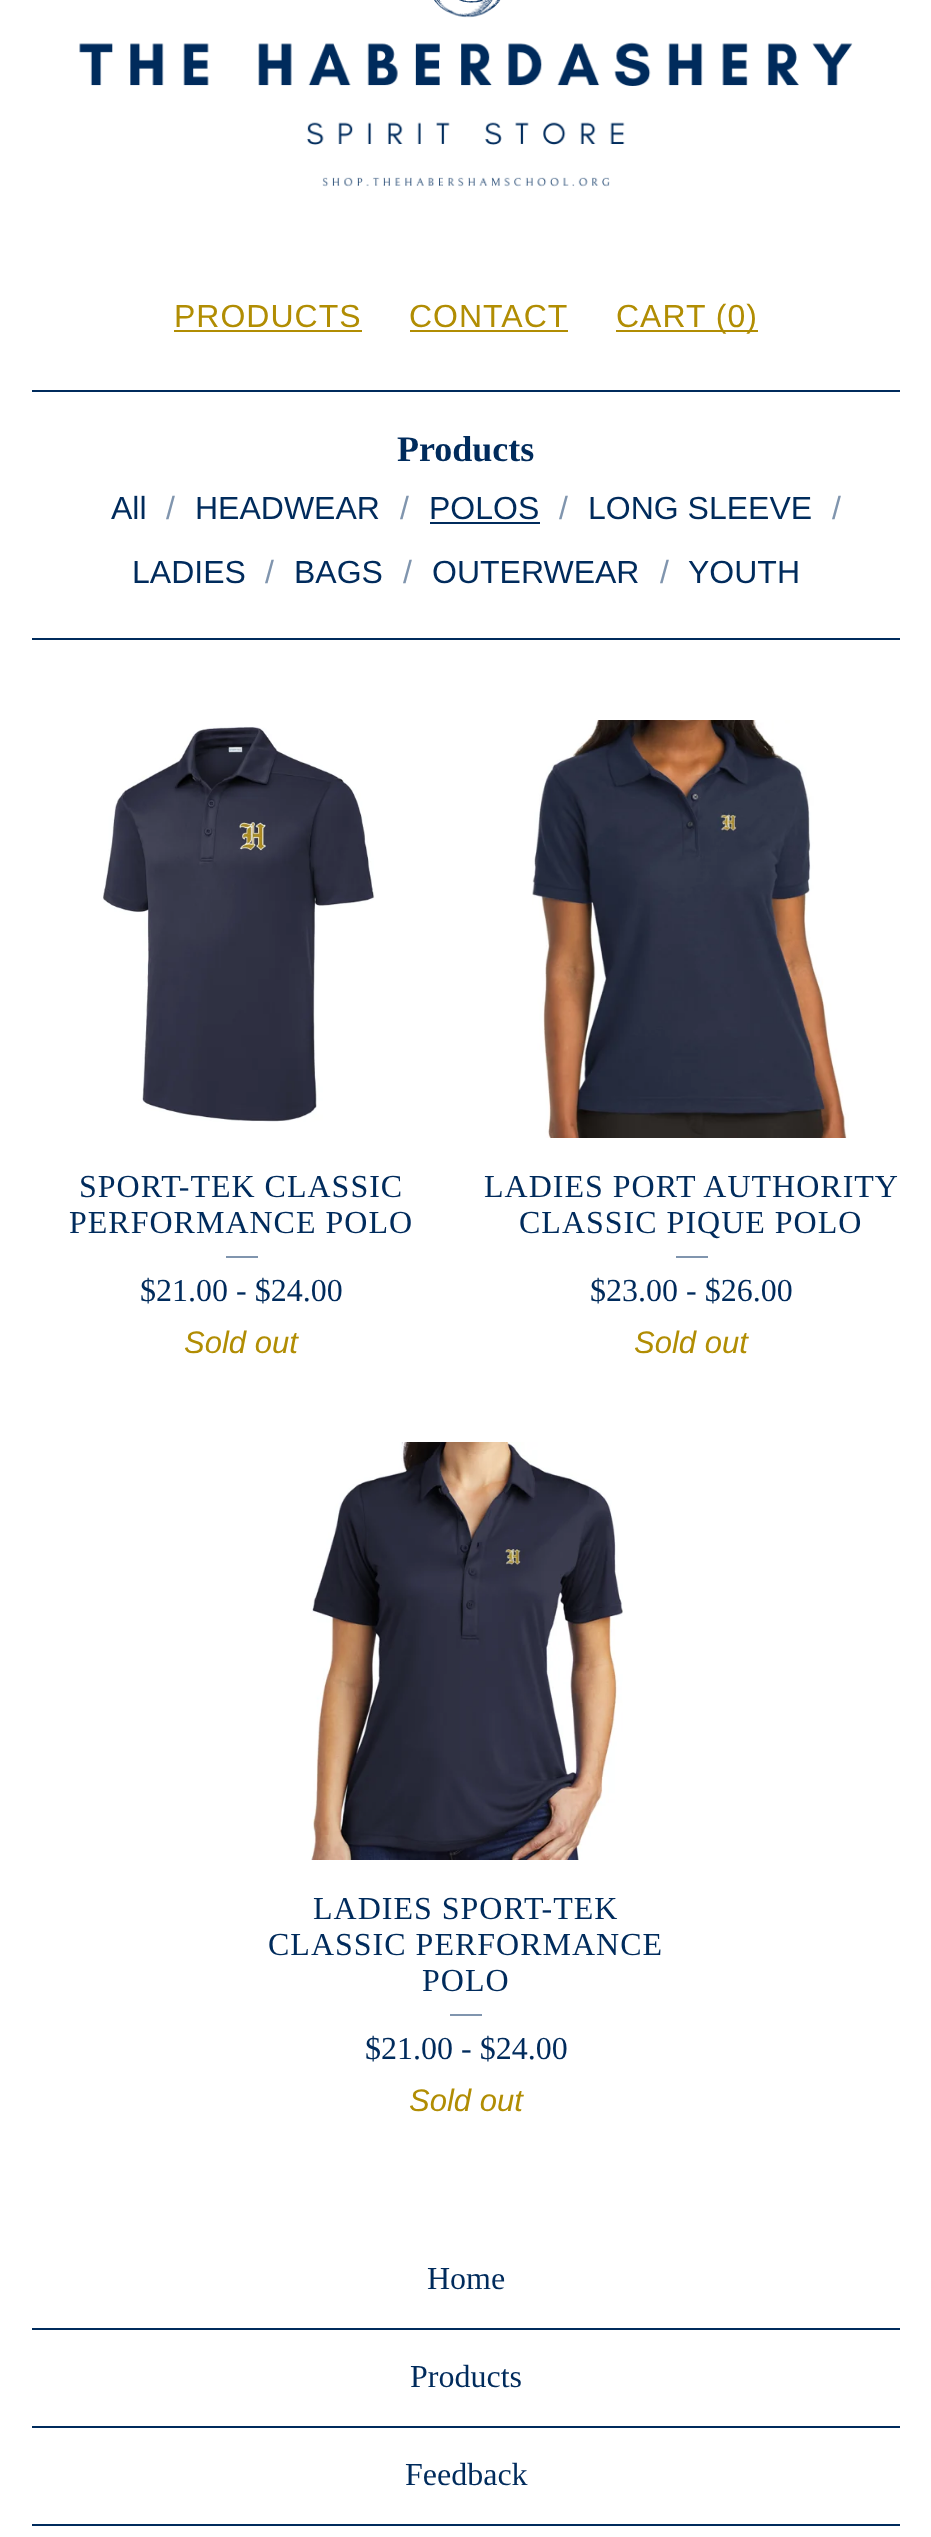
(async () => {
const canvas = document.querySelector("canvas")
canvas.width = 931
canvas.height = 2537
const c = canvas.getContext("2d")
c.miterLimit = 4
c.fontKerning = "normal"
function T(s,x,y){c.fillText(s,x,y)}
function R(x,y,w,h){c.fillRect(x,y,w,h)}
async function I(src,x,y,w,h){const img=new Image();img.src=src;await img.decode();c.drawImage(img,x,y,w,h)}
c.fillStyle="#fff"
R(0,0,931,2537)
await I("1.png",79,0,774,187)
c.letterSpacing="1px"
c.font="32px Liberation Sans"
c.fillStyle="#b18d03"
T("PRODUCTS",174,327)
R(174,330,188,2)
T("CONTACT",409,327)
R(410,330,158,2)
R(616,330,142,2)
T("CART (0)",616,327)
c.fillStyle="#002b5c"
R(32,390,868,2)
R(32,638,868,2)
c.letterSpacing="0px"
c.font="bold 36px Liberation Serif"
T("Products",397,461)
c.font="32px Liberation Sans"
T("All",111,519)
c.fillStyle="#8095ae"
T("/",166,519)
c.fillStyle="#002b5c"
T("HEADWEAR",195,519)
c.fillStyle="#8095ae"
T("/",400,519)
c.fillStyle="#002b5c"
T("POLOS",429,519)
R(430,522,110,2)
c.fillStyle="#8095ae"
T("/",559,519)
c.fillStyle="#002b5c"
T("LONG SLEEVE",588,519)
c.fillStyle="#8095ae"
T("/",832,519)
c.fillStyle="#002b5c"
T("LADIES",132,583)
c.fillStyle="#8095ae"
T("/",265,583)
c.fillStyle="#002b5c"
T("BAGS",294,583)
c.fillStyle="#8095ae"
T("/",403,583)
c.fillStyle="#002b5c"
T("OUTERWEAR",432,583)
c.fillStyle="#8095ae"
T("/",660,583)
c.fillStyle="#002b5c"
T("YOUTH",688,583)
await I("2.png",103,726,272,396)
c.letterSpacing="1px"
c.font="32px Liberation Serif"
T("SPORT-TEK CLASSIC",79,1197)
T("PERFORMANCE POLO",69,1233)
c.fillStyle="#8095ae"
R(226,1256,32,2)
c.letterSpacing="0px"
c.fillStyle="#002b5c"
T("$21.00 - $24.00",140,1301)
c.font="italic 31px Liberation Sans"
c.fillStyle="#b18d03"
T("Sold out",184,1353)
await I("3.png",532,720,317,418)
c.letterSpacing="1px"
c.font="32px Liberation Serif"
c.fillStyle="#002b5c"
T("LADIES PORT AUTHORITY",484,1197)
T("CLASSIC PIQUE POLO",519,1233)
c.fillStyle="#8095ae"
R(676,1256,32,2)
c.letterSpacing="0px"
c.fillStyle="#002b5c"
T("$23.00 - $26.00",590,1301)
c.font="italic 31px Liberation Sans"
c.fillStyle="#b18d03"
T("Sold out",634,1353)
await I("4.png",310,1442,313,418)
c.letterSpacing="1px"
c.font="32px Liberation Serif"
c.fillStyle="#002b5c"
T("LADIES SPORT-TEK",313,1919)
T("CLASSIC PERFORMANCE",268,1955)
T("POLO",422,1991)
c.fillStyle="#8095ae"
R(450,2014,32,2)
c.letterSpacing="0px"
c.fillStyle="#002b5c"
T("$21.00 - $24.00",365,2059)
c.font="italic 31px Liberation Sans"
c.fillStyle="#b18d03"
T("Sold out",409,2111)
c.fillStyle="#002b5c"
R(32,2328,868,2)
c.font="32px Liberation Serif"
T("Home",427,2289)
R(32,2426,868,2)
T("Products",410,2387)
R(32,2524,868,2)
T("Feedback",405,2485)
})()
